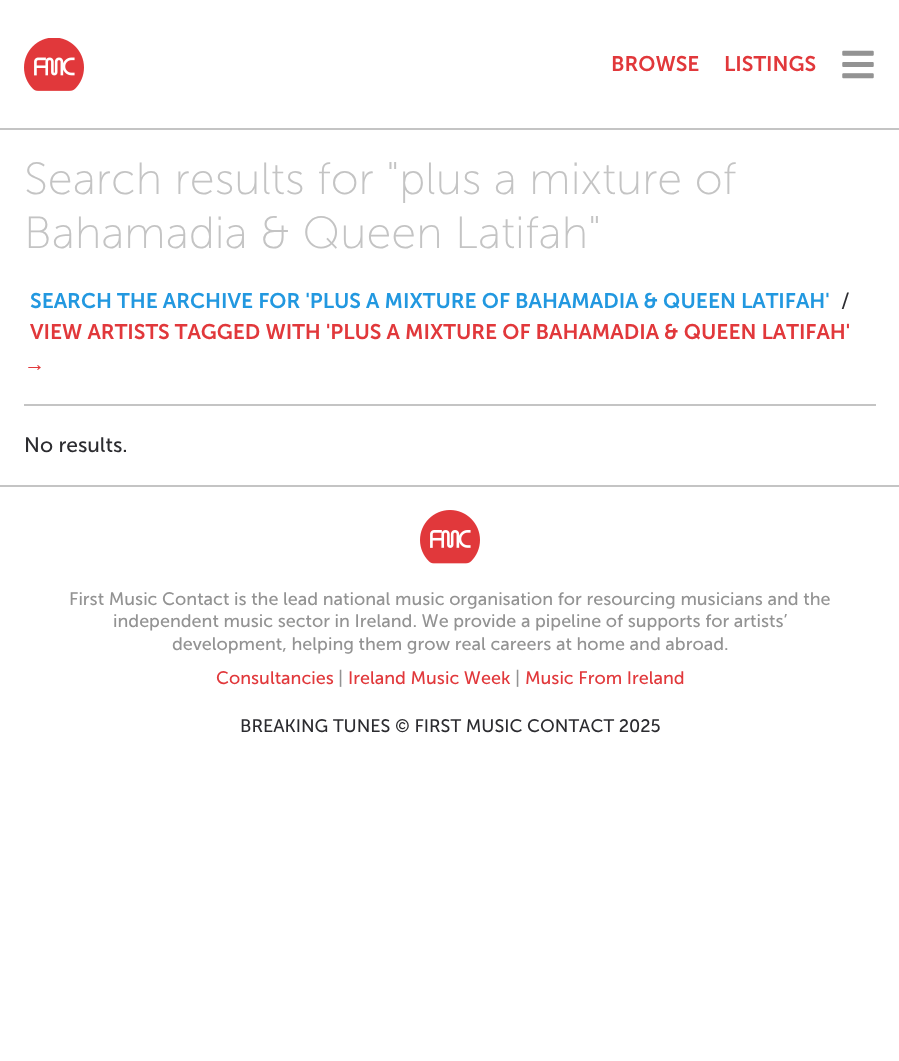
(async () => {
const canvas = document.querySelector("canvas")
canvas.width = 899
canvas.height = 1061
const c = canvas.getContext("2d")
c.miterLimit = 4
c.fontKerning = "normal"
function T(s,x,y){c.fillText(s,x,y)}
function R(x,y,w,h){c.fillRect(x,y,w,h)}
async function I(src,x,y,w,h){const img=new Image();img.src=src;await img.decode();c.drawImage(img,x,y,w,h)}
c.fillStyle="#fff"
R(0,0,899,1061)
await I("1.png",24,38,60,53)
c.font="600 21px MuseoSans"
c.fillStyle="#e1383b"
T("BROWSE",611,71)
T("LISTINGS",724,71)
await I("2.png",842,50,32,29)
c.fillStyle="#c4c4c4"
R(0,128,899,2)
c.font="200 45px MuseoSans"
T("Search results for \"plus a mixture of",24,194)
T("Bahamadia & Queen Latifah\"",24,248)
R(24,404,852,2)
c.font="600 21px MuseoSans"
c.fillStyle="#2298e0"
T("SEARCH THE ARCHIVE FOR 'PLUS A MIXTURE OF BAHAMADIA & QUEEN LATIFAH'",30,308)
c.font="21px MuseoSans"
c.fillStyle="#2c2c30"
T("/",841,308)
c.font="600 21px MuseoSans"
c.fillStyle="#e1383b"
T("VIEW ARTISTS TAGGED WITH 'PLUS A MIXTURE OF BAHAMADIA & QUEEN LATIFAH'",30,339)
c.font="bold 21px Liberation Sans"
T("→",24,371)
c.font="21px MuseoSans"
c.fillStyle="#2c2c30"
T("No results.",24,452)
c.fillStyle="#c4c4c4"
R(0,485,899,2)
await I("3.png",420,510,60,54)
c.font="18px MuseoSans"
c.fillStyle="#939393"
T("First Music Contact is the lead national music organisation for resourcing musicians and the",69,605)
T("independent music sector in Ireland. We provide a pipeline of supports for artists’",113,627)
T("development, helping them grow real careers at home and abroad.",172,650)
c.fillStyle="#e1383b"
T("Consultancies",216,684)
c.fillStyle="#939393"
T("|",338,684)
c.fillStyle="#e1383b"
T("Ireland Music Week",348,684)
c.fillStyle="#939393"
T("|",515,684)
c.fillStyle="#e1383b"
T("Music From Ireland",525,684)
c.fillStyle="#2c2c30"
T("BREAKING TUNES © FIRST MUSIC CONTACT 2025",240,732)
})()
